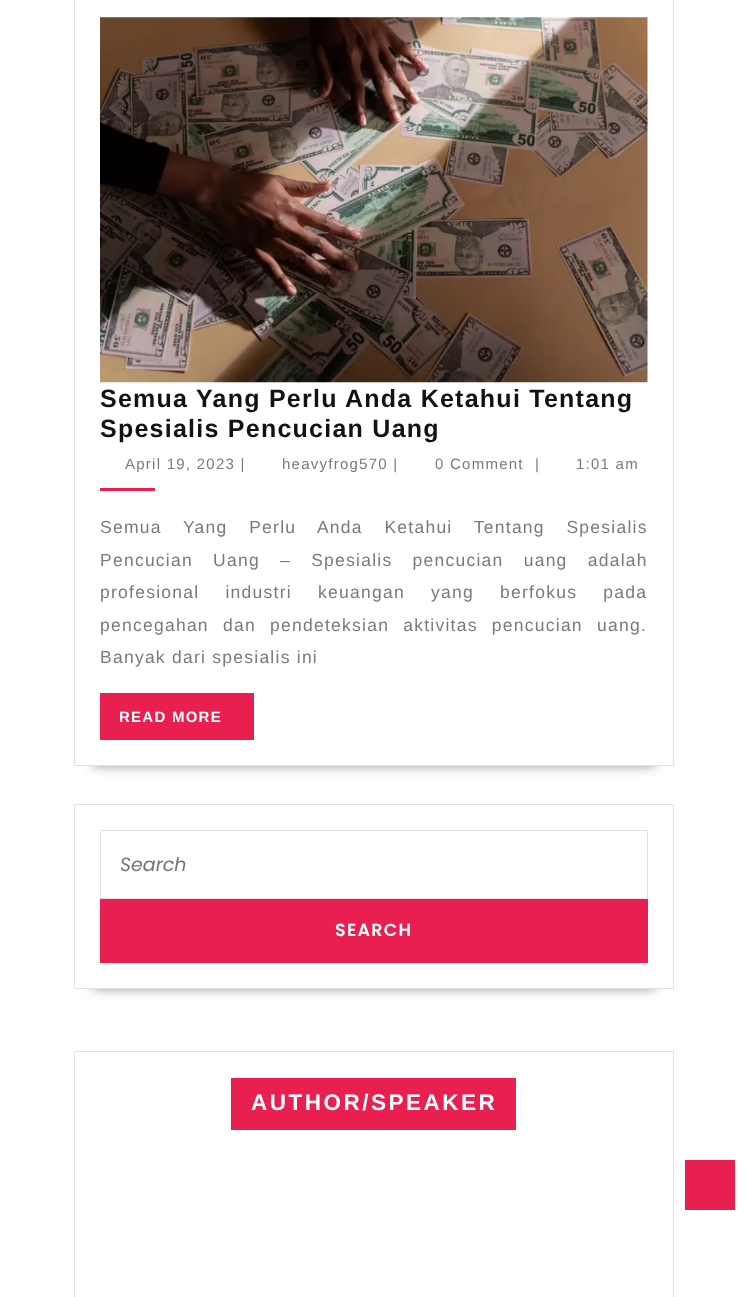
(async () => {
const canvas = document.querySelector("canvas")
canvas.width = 747
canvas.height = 1297
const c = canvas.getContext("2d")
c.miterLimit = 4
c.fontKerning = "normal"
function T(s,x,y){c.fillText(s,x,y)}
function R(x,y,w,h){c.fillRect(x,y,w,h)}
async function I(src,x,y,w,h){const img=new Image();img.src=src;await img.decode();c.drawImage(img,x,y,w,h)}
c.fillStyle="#fff"
R(0,0,747,1297)
c.save()
c.beginPath()
c.rect(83,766,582,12)
c.clip()
c.fillStyle="#999"
c.filter="blur(6px)"
c.beginPath()
c.rect(93,29,562,737)
c.fill()
c.filter="none"
c.restore()
c.strokeStyle="#e1e1e1"
c.strokeRect(74.5,-.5,599,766)
await I("1.png",100,17,548,366)
c.letterSpacing="1.25px"
c.font="bold 25px Liberation Sans"
c.fillStyle="#121212"
T("Semua Yang Perlu Anda Ketahui Tentang",100,407)
T("Spesialis Pencucian Uang",100,437)
c.font="15px Liberation Sans"
c.fillStyle="#7a7a7d"
T("April 19, 2023 |",125,469)
T("heavyfrog570 |",282,469)
T("0 Comment",435,469)
T("|",535,469)
T("1:01 am",576,469)
c.fillStyle="#e9204f"
R(100,488,55,3)
c.wordSpacing="15.5px"
c.font="17.5px Liberation Sans"
c.fillStyle="#7a7a7d"
T("Semua Yang Perlu Anda Ketahui Tentang Spesialis",100,533)
c.wordSpacing="14px"
T("Pencucian Uang – Spesialis pencucian uang adalah",100,566)
c.wordSpacing="20px"
T("profesional industri keuangan yang berfokus pada",100,598)
c.wordSpacing="8px"
T("pencegahan dan pendeteksian aktivitas pencucian uang.",100,631)
c.wordSpacing="0px"
T("Banyak dari spesialis ini",100,663)
c.fillStyle="#e9204f"
R(100,693,154,47)
c.font="bold 15px Liberation Sans"
c.fillStyle="#fff"
T("READ MORE",119,722)
c.save()
c.beginPath()
c.rect(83,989,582,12)
c.clip()
c.fillStyle="#999"
c.filter="blur(6px)"
c.beginPath()
c.rect(93,841,562,148)
c.fill()
c.filter="none"
c.restore()
c.strokeRect(74.5,804.5,599,184)
c.strokeRect(100.5,830.5,547,68)
c.letterSpacing="0px"
c.font="italic 19px Poppins"
c.fillStyle="#757575"
T("Search",120,871)
c.fillStyle="#e9204f"
R(100,899,548,64)
c.letterSpacing="1.25px"
c.font="600 17.5px Poppins"
c.fillStyle="#fff"
T("SEARCH",335,936)
c.strokeRect(74.5,1051.5,599,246)
c.fillStyle="#e9204f"
R(231,1078,285,52)
c.letterSpacing="2.5px"
c.font="bold 22.5px Liberation Sans"
c.fillStyle="#fff"
T("AUTHOR/SPEAKER",251,1110)
c.fillStyle="#e9204f"
R(685,1160,50,50)
})()
